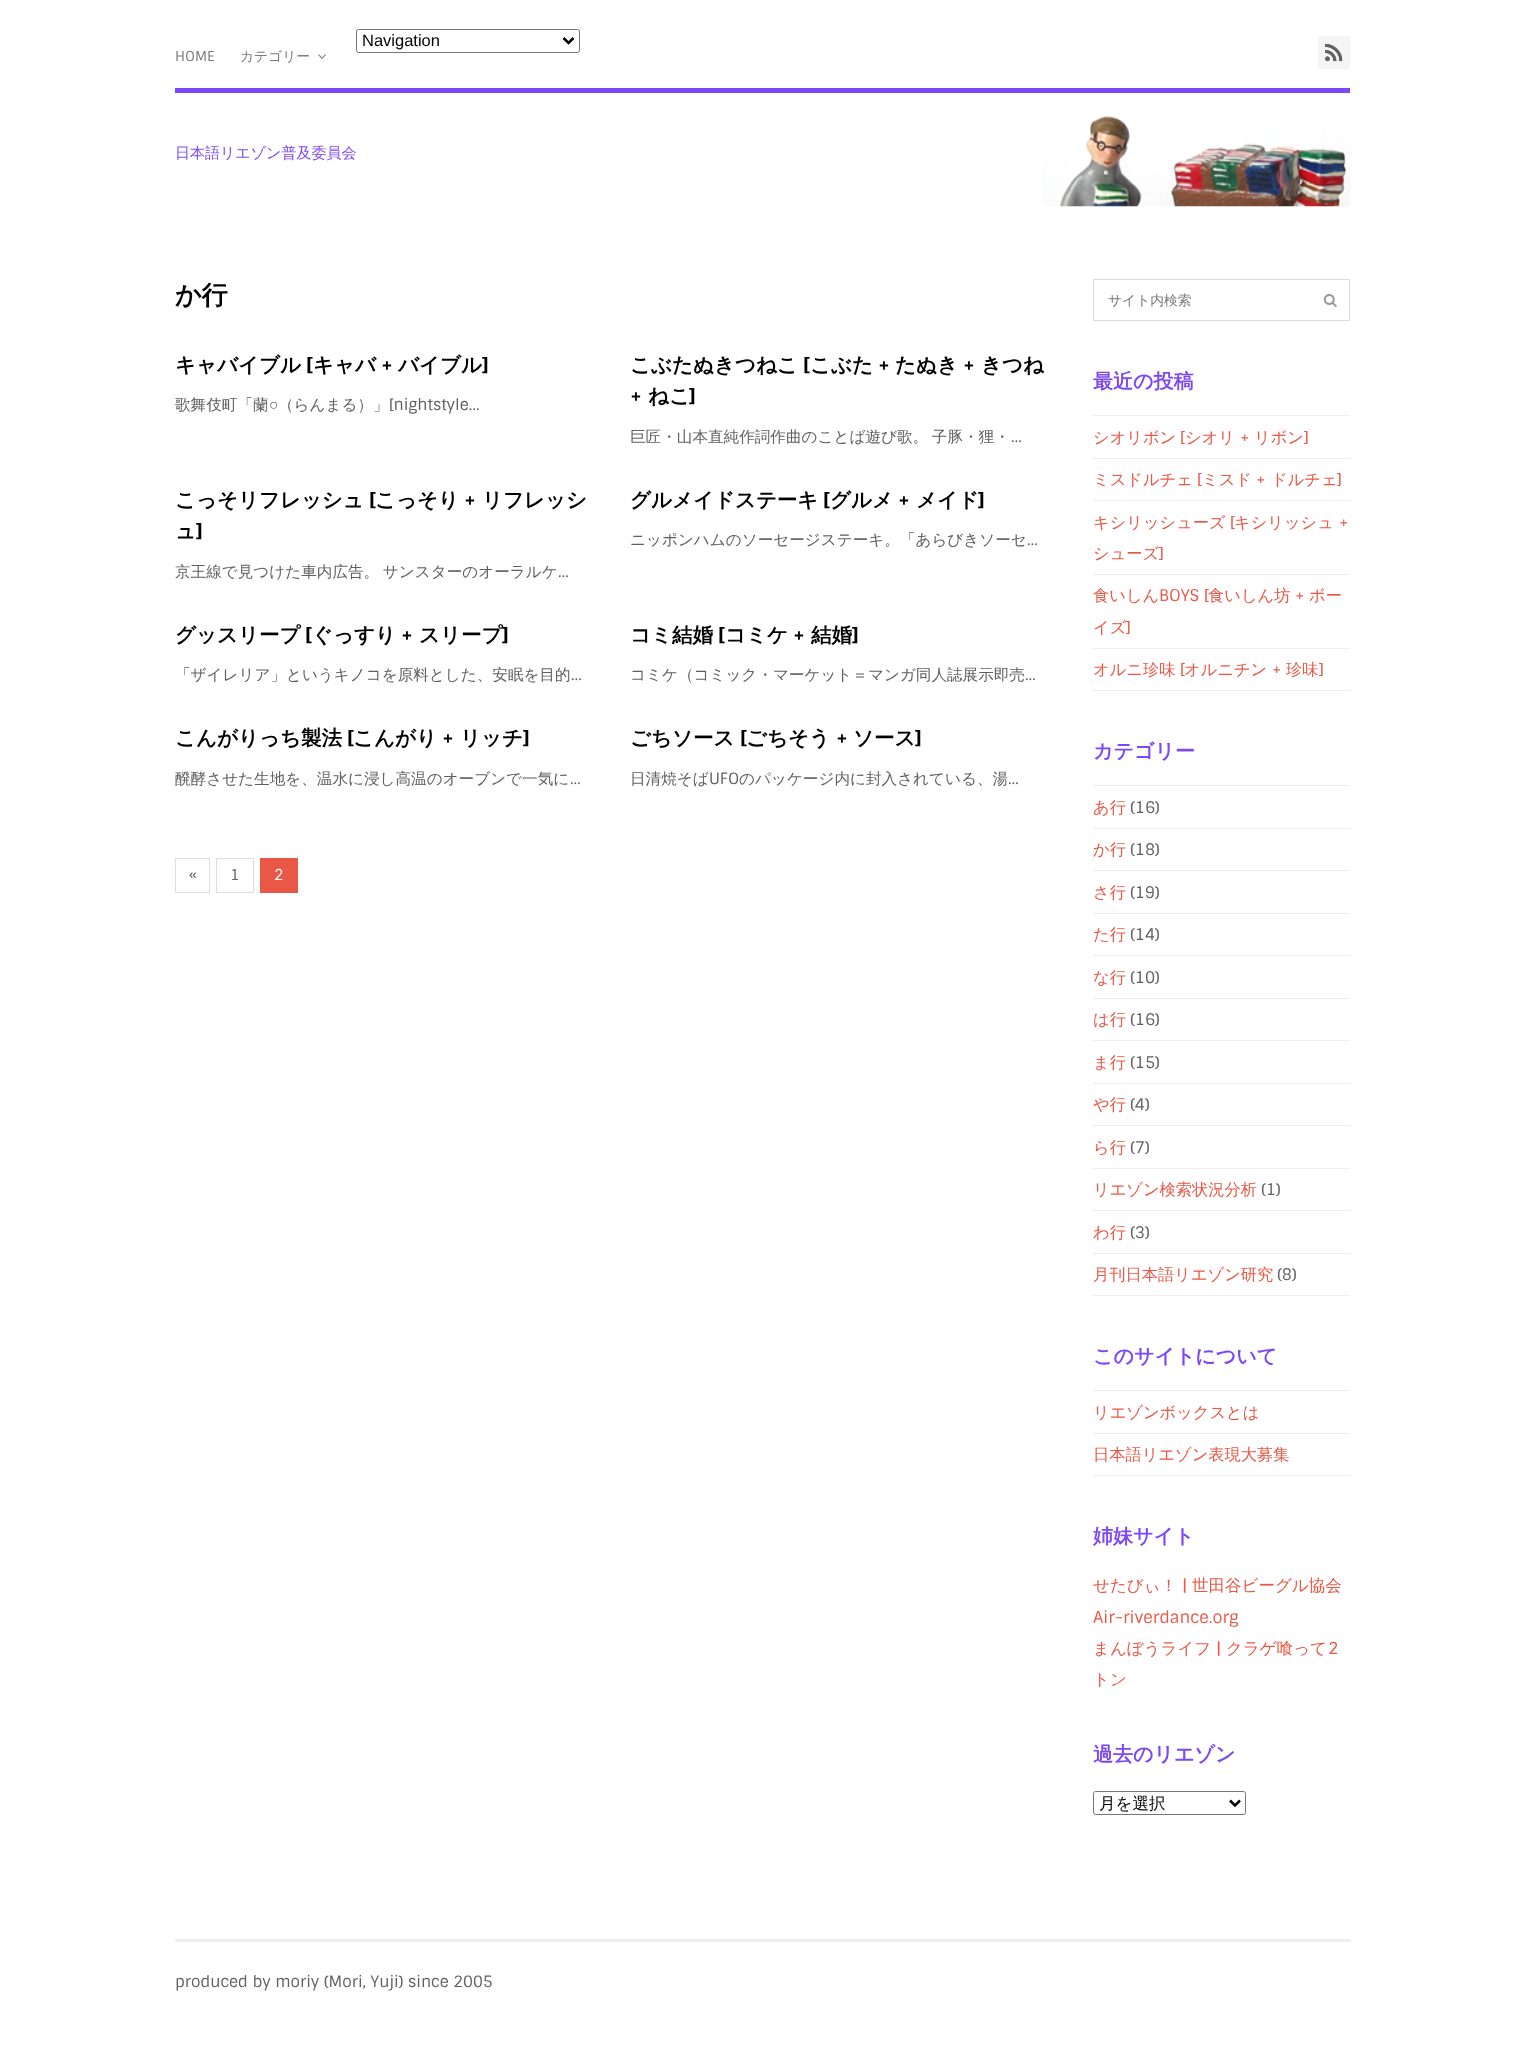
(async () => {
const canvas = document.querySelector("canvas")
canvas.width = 1524
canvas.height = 2052
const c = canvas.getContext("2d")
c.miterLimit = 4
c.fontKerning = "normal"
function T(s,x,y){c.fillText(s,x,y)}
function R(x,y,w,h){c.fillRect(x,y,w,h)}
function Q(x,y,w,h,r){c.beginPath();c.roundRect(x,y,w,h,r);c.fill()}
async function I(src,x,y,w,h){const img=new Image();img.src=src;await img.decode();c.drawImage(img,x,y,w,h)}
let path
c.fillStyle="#fff"
R(0,0,1524,2052)
c.fillStyle="#7c48f7"
R(175,88,1175,5)
c.beginPath()
c.roundRect(356.5,29.5,223,23,2)
c.strokeStyle="#767676"
c.stroke()
path = new Path2D("M563.5 38l5 5l5-5")
c.strokeStyle="#000"
c.lineWidth=2.5
c.stroke(path)
c.font="16.5px Liberation Sans"
c.fillStyle="#000"
T("Navigation",362,46)
c.font="13.75px Sintony"
c.fillStyle="#797979"
T("HOME",175,61)
c.font="500 13.75px WenQuanYi Zen Hei"
T("カテゴリー",240,61)
await I("1.png",318,54,8,5)
c.fillStyle="#f5f5f5"
Q(1318,36,32,33,2.5)
await I("2.png",1325,43,18,19)
c.font="500 15px WenQuanYi Zen Hei"
c.fillStyle="#7c48f7"
T("日本語リエゾン普及委員会",175,158)
await I("3.png",1042,116,308,91)
c.font="bold 26px WenQuanYi Zen Hei"
c.fillStyle="#000"
T("か行",175,304)
c.font="bold 20.5px WenQuanYi Zen Hei"
T("キャバイブル",175,372)
c.font="bold 20.5px Sintony"
T("[",306,372)
c.font="bold 20.5px WenQuanYi Zen Hei"
T("キャバ",313,372)
c.font="bold 20.5px Sintony"
T("+",381,372)
c.font="bold 20.5px WenQuanYi Zen Hei"
T("バイブル",398,372)
c.font="bold 20.5px Sintony"
T("]",482,372)
c.font="500 15.6px WenQuanYi Zen Hei"
c.fillStyle="#606060"
T("歌舞伎町「蘭",175,410)
c.font="15.6px Liberation Sans"
T("○",269,410)
c.font="500 15.6px WenQuanYi Zen Hei"
T("（らんまる）」",278,410)
c.font="15.6px Sintony"
T("[nightstyle…",389,410)
c.font="bold 20.5px WenQuanYi Zen Hei"
c.fillStyle="#000"
T("こぶたぬきつねこ",630,372)
c.font="bold 20.5px Sintony"
T("[",803,372)
c.font="bold 20.5px WenQuanYi Zen Hei"
T("こぶた",810,372)
c.font="bold 20.5px Sintony"
T("+",878,372)
c.font="bold 20.5px WenQuanYi Zen Hei"
T("たぬき",895,372)
c.font="bold 20.5px Sintony"
T("+",963,372)
c.font="bold 20.5px WenQuanYi Zen Hei"
T("きつね",981,372)
c.font="bold 20.5px Sintony"
T("+",630,403)
c.font="bold 20.5px WenQuanYi Zen Hei"
T("ねこ",648,403)
c.font="bold 20.5px Sintony"
T("]",689,403)
c.wordSpacing="-1px"
c.font="500 15.6px WenQuanYi Zen Hei"
c.fillStyle="#606060"
T("巨匠・山本直純作詞作曲のことば遊び歌。 子豚・狸・",630,442)
c.wordSpacing="0px"
c.font="15.6px Sintony"
T("…",1011,442)
c.font="bold 20.5px WenQuanYi Zen Hei"
c.fillStyle="#000"
T("こっそリフレッシュ",175,507)
c.font="bold 20.5px Sintony"
T("[",369,507)
c.font="bold 20.5px WenQuanYi Zen Hei"
T("こっそり",375,507)
c.font="bold 20.5px Sintony"
T("+",464,507)
c.font="bold 20.5px WenQuanYi Zen Hei"
T("リフレッシ",482,507)
T("ュ",175,538)
c.font="bold 20.5px Sintony"
T("]",196,538)
c.wordSpacing="-1px"
c.font="500 15.6px WenQuanYi Zen Hei"
c.fillStyle="#606060"
T("京王線で見つけた車内広告。 サンスターのオーラルケ",175,577)
c.wordSpacing="0px"
c.font="15.6px Sintony"
T("…",558,577)
c.font="bold 20.5px WenQuanYi Zen Hei"
c.fillStyle="#000"
T("グルメイドステーキ",630,507)
c.font="bold 20.5px Sintony"
T("[",823,507)
c.font="bold 20.5px WenQuanYi Zen Hei"
T("グルメ",830,507)
c.font="bold 20.5px Sintony"
T("+",898,507)
c.font="bold 20.5px WenQuanYi Zen Hei"
T("メイド",916,507)
c.font="bold 20.5px Sintony"
T("]",978,507)
c.font="500 15.6px WenQuanYi Zen Hei"
c.fillStyle="#606060"
T("ニッポンハムのソーセージステーキ。「あらびきソーセ",630,545)
c.font="15.6px Sintony"
T("…",1027,545)
c.font="bold 20.5px WenQuanYi Zen Hei"
c.fillStyle="#000"
T("グッスリープ",175,642)
c.font="bold 20.5px Sintony"
T("[",305,642)
c.font="bold 20.5px WenQuanYi Zen Hei"
T("ぐっすり",312,642)
c.font="bold 20.5px Sintony"
T("+",401,642)
c.font="bold 20.5px WenQuanYi Zen Hei"
T("スリープ",419,642)
c.font="bold 20.5px Sintony"
T("]",502,642)
c.font="500 15.6px WenQuanYi Zen Hei"
c.fillStyle="#606060"
T("「ザイレリア」というキノコを原料とした、安眠を目的",175,680)
c.font="15.6px Sintony"
T("…",571,680)
c.font="bold 20.5px WenQuanYi Zen Hei"
c.fillStyle="#000"
T("コミ結婚",630,642)
c.font="bold 20.5px Sintony"
T("[",718,642)
c.font="bold 20.5px WenQuanYi Zen Hei"
T("コミケ",725,642)
c.font="bold 20.5px Sintony"
T("+",793,642)
c.font="bold 20.5px WenQuanYi Zen Hei"
T("結婚",811,642)
c.font="bold 20.5px Sintony"
T("]",852,642)
c.font="500 15.6px WenQuanYi Zen Hei"
c.fillStyle="#606060"
T("コミケ（コミック・マーケット＝マンガ同人誌展示即売",630,680)
c.font="15.6px Sintony"
T("…",1025,680)
c.font="bold 20.5px WenQuanYi Zen Hei"
c.fillStyle="#000"
T("こんがりっち製法",175,745)
c.font="bold 20.5px Sintony"
T("[",347,745)
c.font="bold 20.5px WenQuanYi Zen Hei"
T("こんがり",353,745)
c.font="bold 20.5px Sintony"
T("+",442,745)
c.font="bold 20.5px WenQuanYi Zen Hei"
T("リッチ",460,745)
c.font="bold 20.5px Sintony"
T("]",523,745)
c.font="500 15.6px WenQuanYi Zen Hei"
c.fillStyle="#606060"
T("醗酵させた生地を、温水に浸し高温のオーブンで一気に",175,784)
c.font="15.6px Sintony"
T("…",570,784)
c.font="bold 20.5px WenQuanYi Zen Hei"
c.fillStyle="#000"
T("ごちソース",630,745)
c.font="bold 20.5px Sintony"
T("[",740,745)
c.font="bold 20.5px WenQuanYi Zen Hei"
T("ごちそう",746,745)
c.font="bold 20.5px Sintony"
T("+",836,745)
c.font="bold 20.5px WenQuanYi Zen Hei"
T("ソース",853,745)
c.font="bold 20.5px Sintony"
T("]",915,745)
c.font="500 15.6px WenQuanYi Zen Hei"
c.fillStyle="#606060"
T("日清焼そば",630,784)
c.font="15.6px Sintony"
T("UFO",709,784)
c.font="500 15.6px WenQuanYi Zen Hei"
T("のパッケージ内に封入されている、湯",739,784)
c.font="15.6px Sintony"
T("…",1008,784)
c.strokeStyle="#ddd"
c.lineWidth=1
c.strokeRect(175.5,858.5,34,34)
c.font="15px Sintony"
c.fillStyle="#666"
T("«",189,880)
c.strokeRect(216.5,858.5,37,34)
T("1",230,880)
c.fillStyle="#e95846"
R(260,858,38,35)
c.fillStyle="#fff"
T("2",274,880)
c.strokeRect(1093.5,279.5,256,41)
c.font="500 13.75px WenQuanYi Zen Hei"
c.fillStyle="#797979"
T("サイト内検索",1108,305)
await I("4.png",1323,294,14,13)
c.font="bold 20px WenQuanYi Zen Hei"
c.fillStyle="#7c48f7"
T("最近の投稿",1093,388)
c.fillStyle="#eee"
R(1093,415,257,1)
R(1093,458,257,1)
c.font="500 16.25px WenQuanYi Zen Hei"
c.fillStyle="#e95846"
T("シオリボン",1093,443)
c.font="16.25px Sintony"
T("[",1180,443)
c.font="500 16.25px WenQuanYi Zen Hei"
T("シオリ",1185,443)
c.font="16.25px Sintony"
T("+",1240,443)
c.font="500 16.25px WenQuanYi Zen Hei"
T("リボン",1254,443)
c.font="16.25px Sintony"
T("]",1304,443)
c.fillStyle="#eee"
R(1093,500,257,1)
c.font="500 16.25px WenQuanYi Zen Hei"
c.fillStyle="#e95846"
T("ミスドルチェ",1093,485)
c.font="16.25px Sintony"
T("[",1197,485)
c.font="500 16.25px WenQuanYi Zen Hei"
T("ミスド",1202,485)
c.font="16.25px Sintony"
T("+",1256,485)
c.font="500 16.25px WenQuanYi Zen Hei"
T("ドルチェ",1271,485)
c.font="16.25px Sintony"
T("]",1337,485)
c.fillStyle="#eee"
R(1093,574,257,1)
c.font="500 16.25px WenQuanYi Zen Hei"
c.fillStyle="#e95846"
T("キシリッシューズ",1093,528)
c.font="16.25px Sintony"
T("[",1230,528)
c.font="500 16.25px WenQuanYi Zen Hei"
T("キシリッシュ",1234,528)
c.font="16.25px Sintony"
T("+",1339,528)
c.font="500 16.25px WenQuanYi Zen Hei"
T("シューズ",1093,559)
c.font="16.25px Sintony"
T("]",1159,559)
c.fillStyle="#eee"
R(1093,648,257,1)
c.font="500 16.25px WenQuanYi Zen Hei"
c.fillStyle="#e95846"
T("食いしん",1093,601)
c.font="16.25px Sintony"
T("BOYS [",1159,601)
c.font="500 16.25px WenQuanYi Zen Hei"
T("食いしん坊",1208,601)
c.font="16.25px Sintony"
T("+",1295,601)
c.font="500 16.25px WenQuanYi Zen Hei"
T("ボー",1309,601)
T("イズ",1093,633)
c.font="16.25px Sintony"
T("]",1126,633)
c.fillStyle="#eee"
R(1093,690,257,1)
c.font="500 16.25px WenQuanYi Zen Hei"
c.fillStyle="#e95846"
T("オルニ珍味",1093,675)
c.font="16.25px Sintony"
T("[",1180,675)
c.font="500 16.25px WenQuanYi Zen Hei"
T("オルニチン",1184,675)
c.font="16.25px Sintony"
T("+",1272,675)
c.font="500 16.25px WenQuanYi Zen Hei"
T("珍味",1286,675)
c.font="16.25px Sintony"
T("]",1319,675)
c.font="bold 20px WenQuanYi Zen Hei"
c.fillStyle="#7c48f7"
T("カテゴリー",1093,758)
c.fillStyle="#eee"
R(1093,785,257,1)
R(1093,828,257,1)
c.font="500 16.25px WenQuanYi Zen Hei"
c.fillStyle="#e95846"
T("あ行",1093,813)
c.font="16px Sintony"
c.fillStyle="#606060"
T("(16)",1130,813)
c.fillStyle="#eee"
R(1093,870,257,1)
c.font="500 16.25px WenQuanYi Zen Hei"
c.fillStyle="#e95846"
T("か行",1093,855)
c.font="16px Sintony"
c.fillStyle="#606060"
T("(18)",1130,855)
c.fillStyle="#eee"
R(1093,913,257,1)
c.font="500 16.25px WenQuanYi Zen Hei"
c.fillStyle="#e95846"
T("さ行",1093,898)
c.font="16px Sintony"
c.fillStyle="#606060"
T("(19)",1130,898)
c.fillStyle="#eee"
R(1093,955,257,1)
c.font="500 16.25px WenQuanYi Zen Hei"
c.fillStyle="#e95846"
T("た行",1093,940)
c.font="16px Sintony"
c.fillStyle="#606060"
T("(14)",1130,940)
c.fillStyle="#eee"
R(1093,998,257,1)
c.font="500 16.25px WenQuanYi Zen Hei"
c.fillStyle="#e95846"
T("な行",1093,983)
c.font="16px Sintony"
c.fillStyle="#606060"
T("(10)",1130,983)
c.fillStyle="#eee"
R(1093,1040,257,1)
c.font="500 16.25px WenQuanYi Zen Hei"
c.fillStyle="#e95846"
T("は行",1093,1025)
c.font="16px Sintony"
c.fillStyle="#606060"
T("(16)",1130,1025)
c.fillStyle="#eee"
R(1093,1083,257,1)
c.font="500 16.25px WenQuanYi Zen Hei"
c.fillStyle="#e95846"
T("ま行",1093,1068)
c.font="16px Sintony"
c.fillStyle="#606060"
T("(15)",1130,1068)
c.fillStyle="#eee"
R(1093,1125,257,1)
c.font="500 16.25px WenQuanYi Zen Hei"
c.fillStyle="#e95846"
T("や行",1093,1110)
c.font="16px Sintony"
c.fillStyle="#606060"
T("(4)",1130,1110)
c.fillStyle="#eee"
R(1093,1168,257,1)
c.font="500 16.25px WenQuanYi Zen Hei"
c.fillStyle="#e95846"
T("ら行",1093,1153)
c.font="16px Sintony"
c.fillStyle="#606060"
T("(7)",1130,1153)
c.fillStyle="#eee"
R(1093,1210,257,1)
c.font="500 16.25px WenQuanYi Zen Hei"
c.fillStyle="#e95846"
T("リエゾン検索状況分析",1093,1195)
c.font="16px Sintony"
c.fillStyle="#606060"
T("(1)",1261,1195)
c.fillStyle="#eee"
R(1093,1253,257,1)
c.font="500 16.25px WenQuanYi Zen Hei"
c.fillStyle="#e95846"
T("わ行",1093,1238)
c.font="16px Sintony"
c.fillStyle="#606060"
T("(3)",1130,1238)
c.fillStyle="#eee"
R(1093,1295,257,1)
c.font="500 16.25px WenQuanYi Zen Hei"
c.fillStyle="#e95846"
T("月刊日本語リエゾン研究",1093,1280)
c.font="16px Sintony"
c.fillStyle="#606060"
T("(8)",1277,1280)
c.font="bold 20px WenQuanYi Zen Hei"
c.fillStyle="#7c48f7"
T("このサイトについて",1093,1363)
c.fillStyle="#eee"
R(1093,1390,257,1)
R(1093,1433,257,1)
c.font="500 16.25px WenQuanYi Zen Hei"
c.fillStyle="#e95846"
T("リエゾンボックスとは",1093,1418)
c.fillStyle="#eee"
R(1093,1475,257,1)
c.fillStyle="#e95846"
T("日本語リエゾン表現大募集",1093,1460)
c.font="bold 20px WenQuanYi Zen Hei"
c.fillStyle="#7c48f7"
T("姉妹サイト",1093,1543)
c.font="500 16.5px WenQuanYi Zen Hei"
c.fillStyle="#e95846"
T("せたびぃ！",1093,1591)
c.font="16.5px Sintony"
T("|",1182,1591)
c.font="500 16.5px WenQuanYi Zen Hei"
T("世田谷ビーグル協会",1192,1591)
c.font="16.5px Sintony"
T("Air-riverdance.org",1093,1623)
c.font="500 16.5px WenQuanYi Zen Hei"
T("まんぼうライフ",1093,1654)
c.font="16.5px Sintony"
T("|",1216,1654)
c.font="500 16.5px WenQuanYi Zen Hei"
T("クラゲ喰って",1226,1654)
c.font="16.5px Sintony"
T("2",1328,1654)
c.font="500 16.5px WenQuanYi Zen Hei"
T("トン",1093,1685)
c.font="bold 20px WenQuanYi Zen Hei"
c.fillStyle="#7c48f7"
T("過去のリエゾン",1093,1761)
c.beginPath()
c.roundRect(1093.5,1791.5,152,23,2)
c.strokeStyle="#767676"
c.stroke()
path = new Path2D("M1230 1800.5l5 5l5-5")
c.strokeStyle="#000"
c.lineWidth=2.5
c.stroke(path)
c.font="500 16.5px WenQuanYi Zen Hei"
c.fillStyle="#000"
T("月を選択",1099,1809)
c.fillStyle="#eee"
R(175,1939,1175,3)
c.font="15.6px Sintony"
c.fillStyle="#606060"
T("produced by moriy (Mori, Yuji) since 2005",175,1987)
})()
